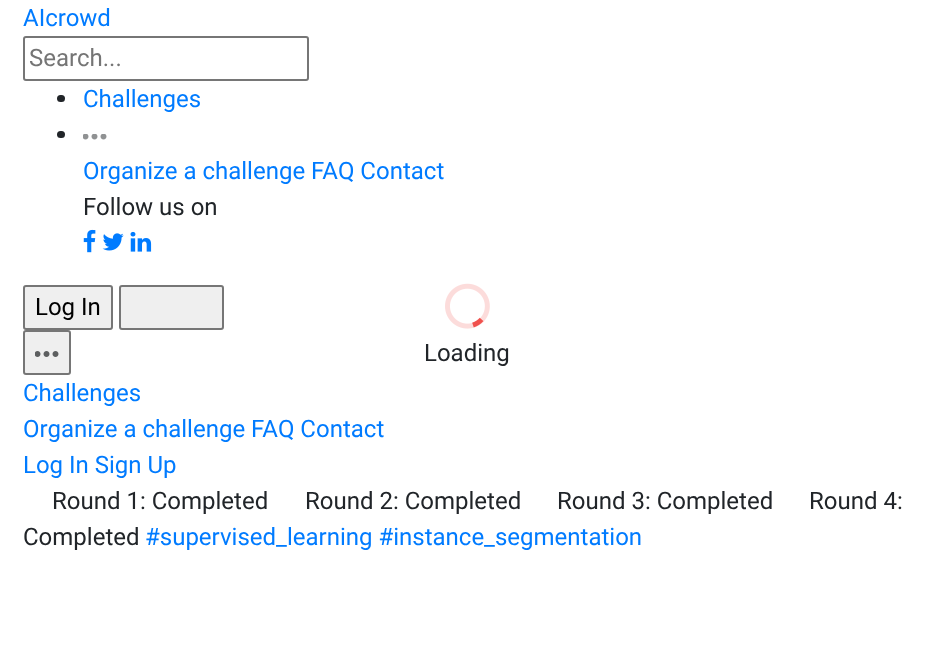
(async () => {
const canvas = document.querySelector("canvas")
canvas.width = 933
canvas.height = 646
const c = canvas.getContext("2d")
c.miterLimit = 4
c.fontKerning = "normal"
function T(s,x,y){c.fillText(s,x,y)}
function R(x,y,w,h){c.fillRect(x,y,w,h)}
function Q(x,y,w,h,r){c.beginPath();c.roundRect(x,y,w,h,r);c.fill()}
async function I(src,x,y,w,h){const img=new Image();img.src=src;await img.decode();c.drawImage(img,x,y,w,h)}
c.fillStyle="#fff"
R(0,0,933,646)
c.font="24px Roboto"
c.fillStyle="#007bff"
T("AIcrowd",23,26)
c.beginPath()
c.roundRect(24,37,284,43,2)
c.strokeStyle="#767676"
c.lineWidth=2
c.stroke()
c.fillStyle="#757575"
T("Search...",29,66)
c.fillStyle="#212529"
Q(57,95,8,7,3.5)
c.fillStyle="#007bff"
T("Challenges",83,107)
c.fillStyle="#212529"
Q(57,131,8,7,3.5)
await I("1.png",83,134,24,6)
c.fillStyle="#007bff"
T("Organize a challenge FAQ Contact",83,179)
c.fillStyle="#212529"
T("Follow us on",83,215)
await I("2.png",83,229,13,24)
await I("3.png",102,233,22,18)
await I("4.png",130,231,22,21)
c.fillStyle="#efefef"
c.beginPath()
c.roundRect(24,286,88,43,2)
c.fill()
c.stroke()
c.fillStyle="#000"
T("Log In",35,315)
c.fillStyle="#efefef"
c.beginPath()
c.roundRect(120,286,103,43,2)
c.fill()
c.stroke()
c.beginPath()
c.roundRect(24,331,46,43,2)
c.fill()
c.stroke()
await I("5.png",35,351,24,6)
c.fillStyle="#007bff"
T("Challenges",23,401)
T("Organize a challenge FAQ Contact",23,437)
T("Log In Sign Up",23,473)
c.fillStyle="#212529"
T("Round 1: Completed",52,509)
T("Round 2: Completed",305,509)
T("Round 3: Completed",557,509)
T("Round 4:",809,509)
T("Completed",23,545)
c.fillStyle="#007bff"
T("#supervised_learning #instance_segmentation",145,545)
await I("6.png",445,283,45,46)
c.fillStyle="#212529"
T("Loading",424,361)
})()
